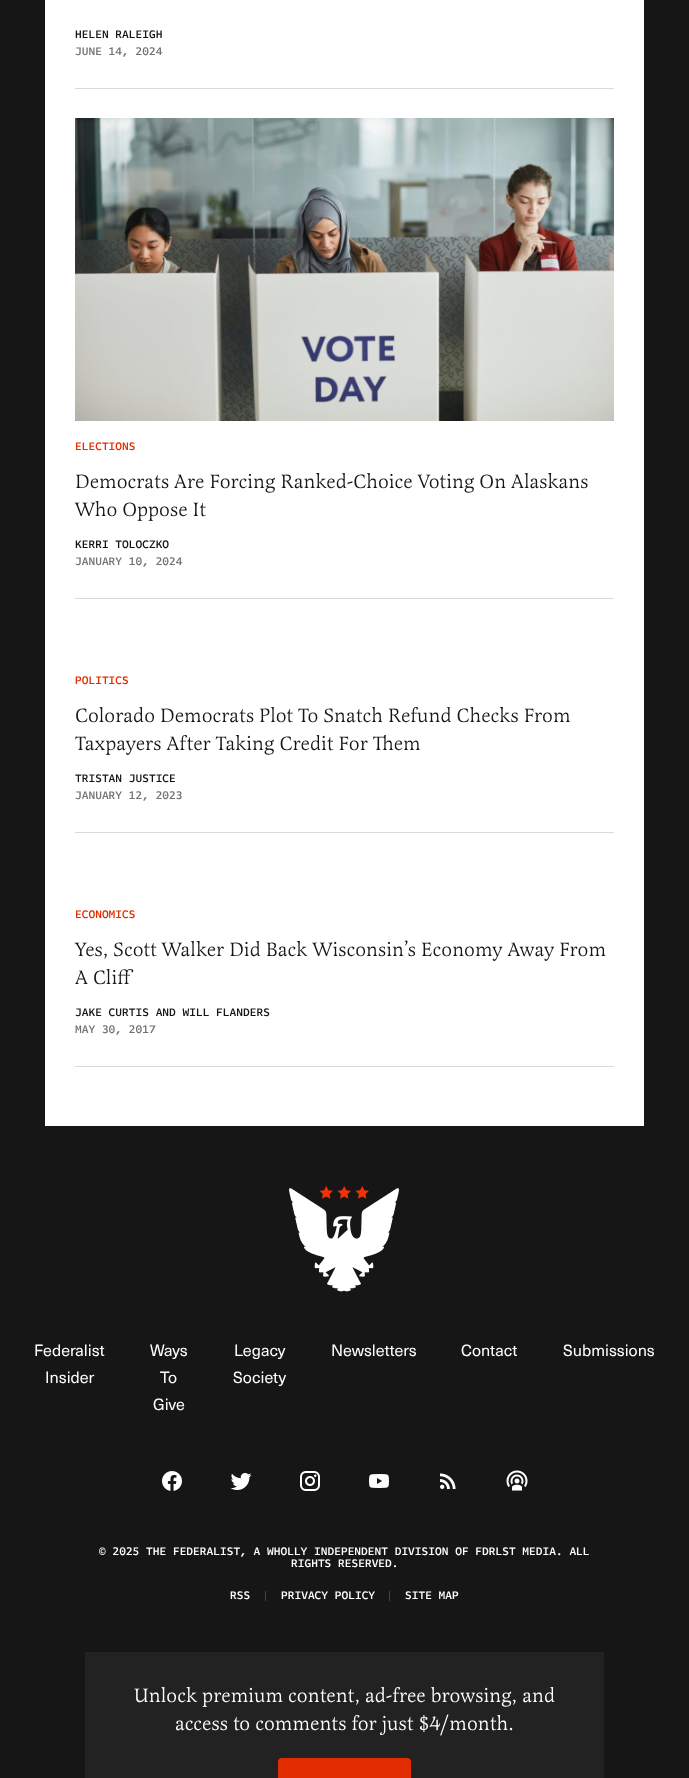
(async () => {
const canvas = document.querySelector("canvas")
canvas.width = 689
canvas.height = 1778
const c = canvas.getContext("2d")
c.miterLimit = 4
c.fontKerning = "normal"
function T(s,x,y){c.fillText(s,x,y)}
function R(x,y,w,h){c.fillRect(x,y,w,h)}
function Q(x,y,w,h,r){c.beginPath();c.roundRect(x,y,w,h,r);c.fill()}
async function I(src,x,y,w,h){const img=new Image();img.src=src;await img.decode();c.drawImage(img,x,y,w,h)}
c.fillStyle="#161616"
R(0,0,689,1778)
c.fillStyle="#fff"
R(45,0,599,1126)
c.fillStyle="#d9d9d9"
R(75,88,539,1)
c.font="500 12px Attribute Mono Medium"
c.fillStyle="#161616"
T("HELEN RALEIGH",75,38)
c.fillStyle="#737373"
T("JUNE 14, 2024",75,55)
c.fillStyle="#d9d9d9"
R(75,598,539,1)
await I("1.png",75,118,539,303)
c.fillStyle="#e12d00"
T("ELECTIONS",75,450)
c.font="20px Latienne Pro"
c.fillStyle="#161616"
T("Democrats Are Forcing Ranked-Choice Voting On Alaskans",75,488)
T("Who Oppose It",75,516)
c.font="500 12px Attribute Mono Medium"
T("KERRI TOLOCZKO",75,548)
c.fillStyle="#737373"
T("JANUARY 10, 2024",75,565)
c.fillStyle="#d9d9d9"
R(75,832,539,1)
c.fillStyle="#e12d00"
T("POLITICS",75,684)
c.font="20px Latienne Pro"
c.fillStyle="#161616"
T("Colorado Democrats Plot To Snatch Refund Checks From",75,722)
T("Taxpayers After Taking Credit For Them",75,750)
c.font="500 12px Attribute Mono Medium"
T("TRISTAN JUSTICE",75,782)
c.fillStyle="#737373"
T("JANUARY 12, 2023",75,799)
c.fillStyle="#d9d9d9"
R(75,1066,539,1)
c.fillStyle="#e12d00"
T("ECONOMICS",75,918)
c.font="20px Latienne Pro"
c.fillStyle="#161616"
T("Yes, Scott Walker Did Back Wisconsin’s Economy Away From",75,956)
T("A Cliff",75,984)
c.font="500 12px Attribute Mono Medium"
T("JAKE CURTIS AND WILL FLANDERS",75,1016)
c.fillStyle="#737373"
T("MAY 30, 2017",75,1033)
await I("2.png",289,1186,110,106)
c.font="16px 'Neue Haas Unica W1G'"
c.fillStyle="#fff"
T("Federalist",34,1356)
T("Insider",45,1383)
T("Ways",150,1356)
T("To",160,1383)
T("Give",153,1410)
T("Legacy",234,1356)
T("Society",233,1383)
T("Newsletters",331,1356)
T("Contact",461,1356)
T("Submissions",563,1356)
await I("3.png",162,1471,20,20)
await I("4.png",230,1473,22,17)
await I("5.png",300,1471,20,20)
await I("6.png",369,1474,20,14)
await I("7.png",440,1473,16,16)
await I("8.png",506,1470,22,21)
c.font="500 12px Attribute Mono Medium"
T("© 2025 THE FEDERALIST, A WHOLLY INDEPENDENT DIVISION OF FDRLST MEDIA. ALL",99,1555)
T("RIGHTS RESERVED.",291,1567)
T("RSS",230,1599)
c.fillStyle="#454545"
R(265,1591,1,10)
c.fillStyle="#fff"
T("PRIVACY POLICY",281,1599)
c.fillStyle="#454545"
R(389,1591,1,10)
c.fillStyle="#fff"
T("SITE MAP",405,1599)
c.fillStyle="#222"
R(85,1652,519,126)
c.font="20px Latienne Pro"
c.fillStyle="#fff"
T("Unlock premium content, ad-free browsing, and",134,1702)
T("access to comments for just $4/month.",175,1730)
c.fillStyle="#e12d00"
Q(278,1758,133,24,4)
})()
